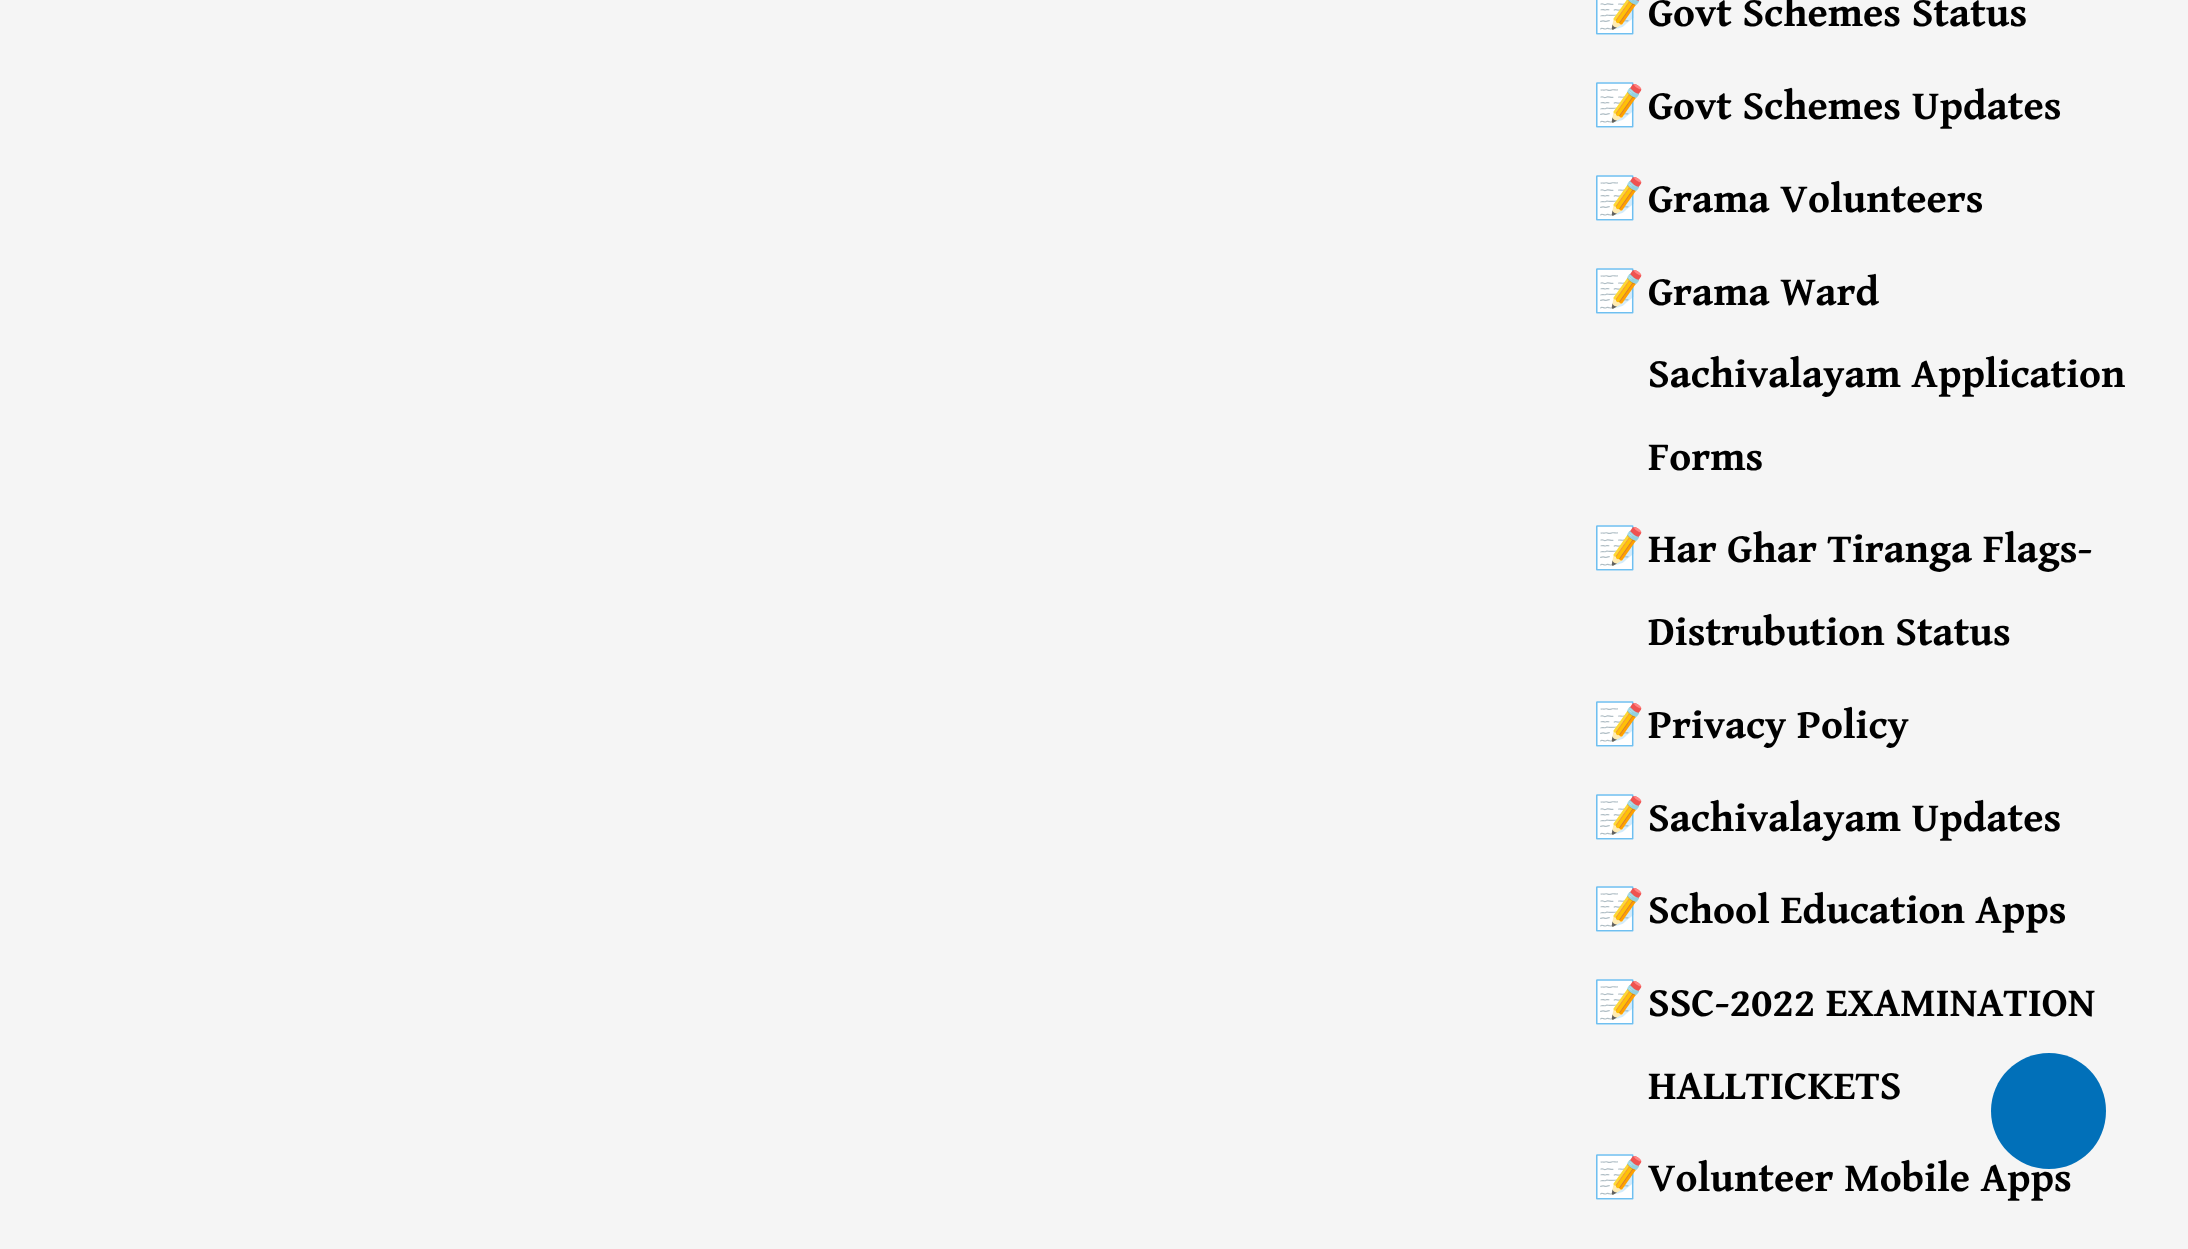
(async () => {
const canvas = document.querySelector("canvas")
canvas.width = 2188
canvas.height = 1249
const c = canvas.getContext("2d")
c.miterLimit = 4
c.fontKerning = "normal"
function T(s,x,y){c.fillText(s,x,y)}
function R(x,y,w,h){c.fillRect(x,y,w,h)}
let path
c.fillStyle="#f5f5f5"
R(0,0,2188,1249)
c.font="bold 41.25px Noto Color Emoji"
c.fillStyle="#000"
T("📝",1593,26)
c.font="bold 41.25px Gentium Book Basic"
T("Govt Schemes Status",1648,26)
c.font="bold 41.25px Noto Color Emoji"
T("📝",1593,119)
c.font="bold 41.25px Gentium Book Basic"
T("Govt Schemes Updates",1648,119)
c.font="bold 41.25px Noto Color Emoji"
T("📝",1593,212)
c.font="bold 41.25px Gentium Book Basic"
T("Grama Volunteers",1648,212)
c.font="bold 41.25px Noto Color Emoji"
T("📝",1593,305)
c.font="bold 41.25px Gentium Book Basic"
T("Grama Ward",1648,305)
T("Sachivalayam Application",1648,387)
T("Forms",1648,470)
c.font="bold 41.25px Noto Color Emoji"
T("📝",1593,562)
c.font="bold 41.25px Gentium Book Basic"
T("Har Ghar Tiranga Flags-",1648,562)
T("Distrubution Status",1648,645)
c.font="bold 41.25px Noto Color Emoji"
T("📝",1593,738)
c.font="bold 41.25px Gentium Book Basic"
T("Privacy Policy",1648,738)
c.font="bold 41.25px Noto Color Emoji"
T("📝",1593,831)
c.font="bold 41.25px Gentium Book Basic"
T("Sachivalayam Updates",1648,831)
c.font="bold 41.25px Noto Color Emoji"
T("📝",1593,923)
c.font="bold 41.25px Gentium Book Basic"
T("School Education Apps",1648,923)
c.font="bold 41.25px Noto Color Emoji"
T("📝",1593,1016)
c.font="bold 41.25px Gentium Book Basic"
T("SSC-2022 EXAMINATION",1648,1016)
T("HALLTICKETS",1648,1099)
c.font="bold 41.25px Noto Color Emoji"
T("📝",1593,1191)
c.font="bold 41.25px Gentium Book Basic"
T("Volunteer Mobile Apps",1648,1191)
c.fillStyle="#0170b9"
path = new Path2D("M2049 1169c-32 0-58-26-58-58c0-32 26-58 58-58c32 0 57 26 57 58c0 32-25 58-57 58z")
c.fill(path)
})()
